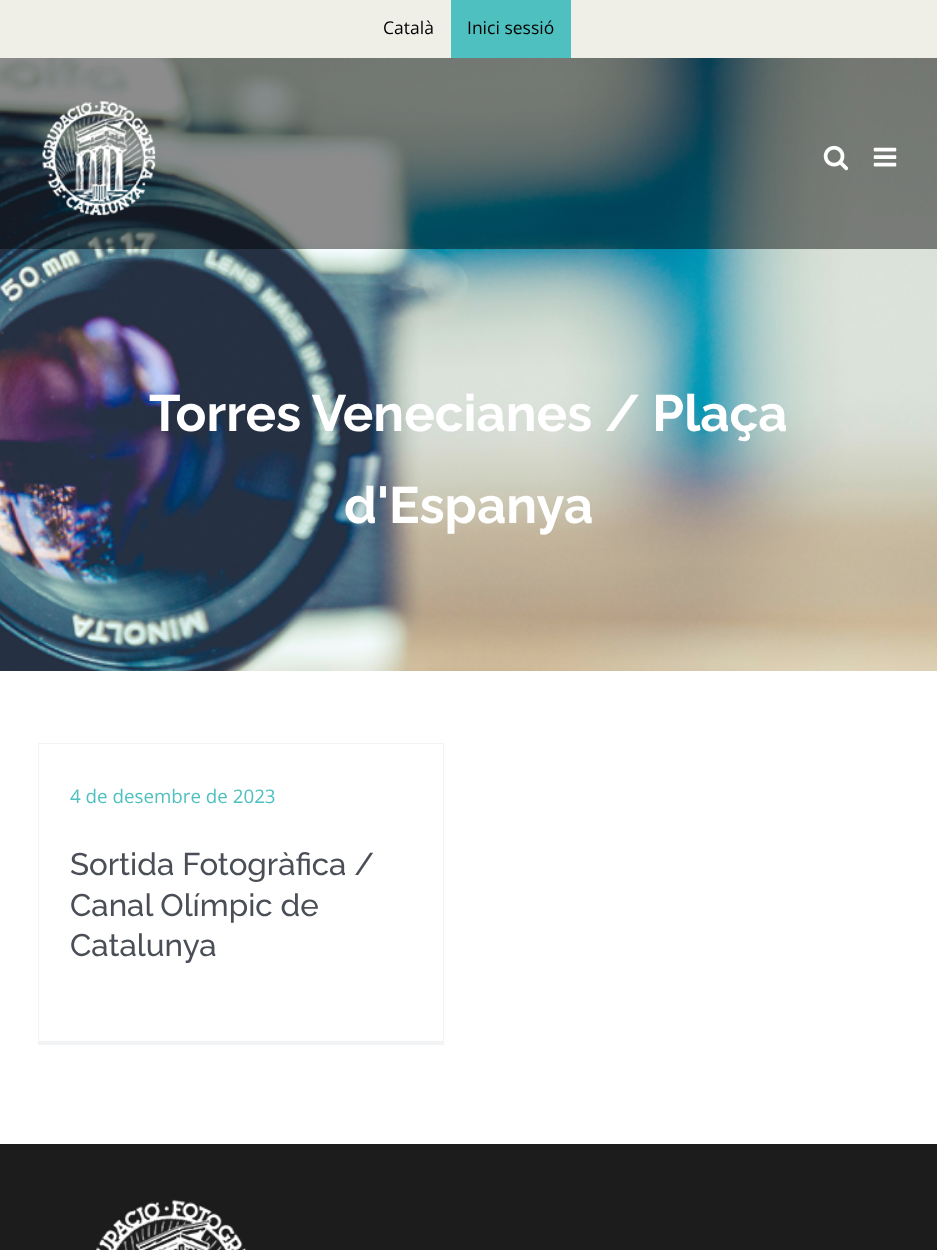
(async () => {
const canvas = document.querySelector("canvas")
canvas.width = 937
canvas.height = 1250
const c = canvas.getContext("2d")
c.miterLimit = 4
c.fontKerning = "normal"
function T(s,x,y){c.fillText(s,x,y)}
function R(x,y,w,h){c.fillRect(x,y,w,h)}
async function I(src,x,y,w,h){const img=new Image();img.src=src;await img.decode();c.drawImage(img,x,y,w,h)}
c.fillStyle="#fff"
R(0,0,937,1250)
c.fillStyle="#efeee7"
R(0,0,937,58)
c.font="17.5px Open Sans"
c.fillStyle="#000"
T("Català",383,34)
c.fillStyle="#4ec0bf"
R(451,0,120,58)
c.fillStyle="#000"
T("Inici sessió",467,34)
await I("4.png",0,58,937,613)
c.fillStyle="#00000073"
R(0,58,937,191)
await I("1.png",42,101,114,115)
await I("2.png",823,145,26,26)
await I("3.png",873,147,24,20)
c.font="bold 51px Raleway"
c.fillStyle="#fff"
T("Torres Venecianes / Plaça",149,431)
T("d'Espanya",344,523)
c.fillStyle="#f2f3f5"
R(38,743,406,1)
R(443,743,1,302)
R(38,1041,406,4)
R(38,743,1,302)
c.font="18.75px Open Sans"
c.fillStyle="#4ec0bf"
T("4 de desembre de 2023",70,803)
c.font="500 31.25px Raleway"
c.fillStyle="#4a4e57"
T("Sortida Fotogràfica /",70,875)
T("Canal Olímpic de",70,916)
T("Catalunya",70,956)
c.fillStyle="#1c1c1c"
R(0,1144,937,106)
await I("5.png",96,1199,151,51)
})()
